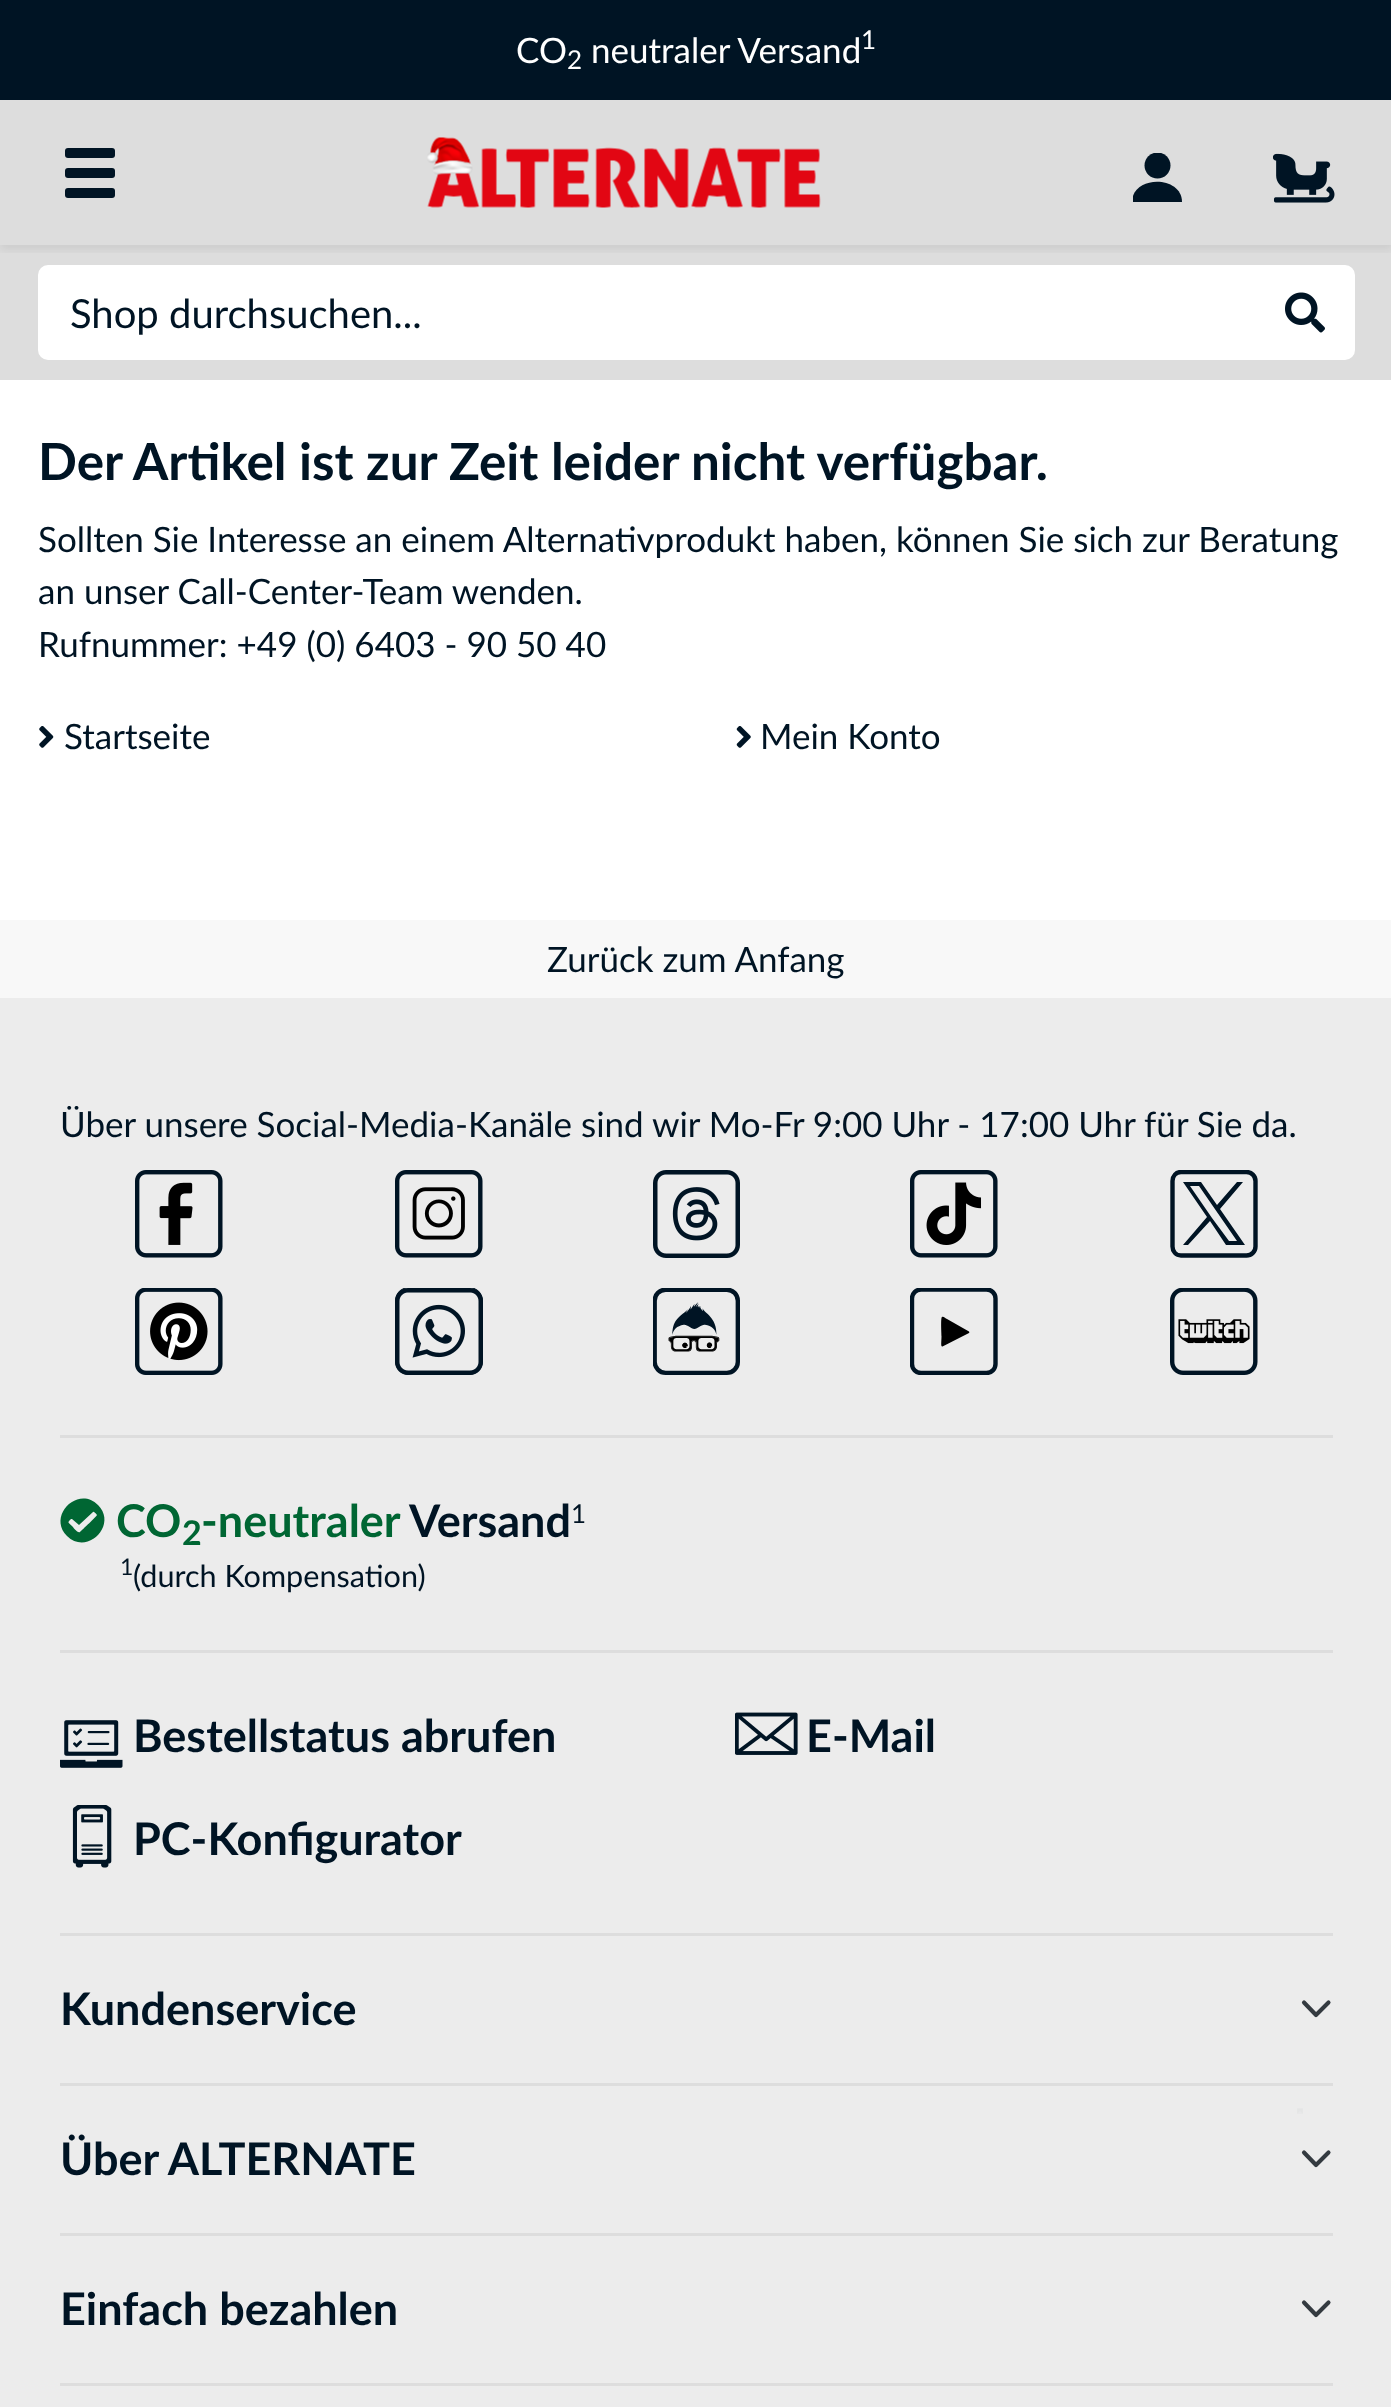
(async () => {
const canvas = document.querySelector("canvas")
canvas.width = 1391
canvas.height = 2407
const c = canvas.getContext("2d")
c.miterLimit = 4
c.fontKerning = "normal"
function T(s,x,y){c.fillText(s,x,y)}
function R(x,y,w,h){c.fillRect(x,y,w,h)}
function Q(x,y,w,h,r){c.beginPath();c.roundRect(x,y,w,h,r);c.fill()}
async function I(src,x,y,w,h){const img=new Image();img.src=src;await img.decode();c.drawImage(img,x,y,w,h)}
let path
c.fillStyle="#fff"
R(0,0,1391,2407)
c.fillStyle="#001424"
R(0,0,1391,100)
c.font="35px Lato"
c.fillStyle="#fff"
T("CO",516,63)
c.font="26px Lato"
T("2",567,69)
c.font="35px Lato"
T("neutraler Versand",591,63)
c.font="26px Lato"
T("1",861,49)
c.fillStyle="#ddd"
R(0,100,1391,280)
c.save()
c.beginPath()
c.rect(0,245,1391,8)
c.clip()
c.fillStyle="#00000012"
c.filter="blur(5px)"
c.beginPath()
c.rect(0,105,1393,145)
c.fill()
c.filter="none"
c.restore()
c.fillStyle="#001424"
Q(65,148,50,10,3)
Q(65,168,50,10,3)
Q(65,188,50,10,3)
await I("1.png",427,137,394,71)
c.save()
c.beginPath()
c.rect(1133,153,50,50)
c.clip()
c.beginPath()
c.arc(1157.5,165.5,13,0,7)
c.fill()
path = new Path2D("M1182 202h-50c0-27 50-27 50 0z")
c.fill(path)
c.restore()
await I("2.png",1273,153,62,50)
c.fillStyle="#fff"
c.beginPath()
c.roundRect(39.5,266.5,1214,92,[8.5,0,0,8.5])
c.fill()
c.strokeStyle="#fff"
c.lineWidth=3
c.stroke()
c.font="40px Lato"
c.fillStyle="#001424"
T("Shop durchsuchen...",70,328)
c.fillStyle="#fff"
c.beginPath()
c.roundRect(1255,265,100,95,[0,10,10,0])
c.fill()
await I("3.png",1285,292,40,41)
c.font="bold 51.25px Lato"
c.fillStyle="#001424"
T("Der Artikel ist zur Zeit leider nicht verfügbar.",38,480)
c.font="35px Lato"
T("Sollten Sie Interesse an einem Alternativprodukt haben, können Sie sich zur Beratung",38,552)
T("an unser Call-Center-Team wenden.",38,604)
T("Rufnummer: +49 (0) 6403 - 90 50 40",38,657)
await I("4.png",39,726,15,22)
T("Startseite",64,749)
await I("5.png",736,726,15,22)
T("Mein Konto",760,749)
c.fillStyle="#f8f8f8"
R(0,920,1391,78)
c.fillStyle="#001424"
T("Zurück zum Anfang",547,972)
c.fillStyle="#ececec"
R(0,998,1391,1409)
c.fillStyle="#001424"
T("Über unsere Social-Media-Kanäle sind wir Mo-Fr 9:00 Uhr - 17:00 Uhr für Sie da.",60,1137)
await I("6.png",135,1170,88,88)
await I("7.png",395,1170,88,88)
await I("8.png",653,1170,87,88)
await I("9.png",910,1170,88,88)
c.save()
c.beginPath()
c.rect(1170,1170,88,88)
c.clip()
path = new Path2D("M1181 1172h65.5c5 0 9 4 9 9v65.5c0 5-4 9-9 9h-65.5c-5 0-8.5-4-8.5-9v-65.5c0-5 3.5-9 8.5-9z")
c.strokeStyle="#001424"
c.lineWidth=4.4
c.stroke(path)
c.restore()
path = new Path2D("M1220 1209l23-27h-6l-20 23l-16-23h-18l24 35l-24 28h5l22-24l16 24h19zm-8 9l-22-32h9l38 55h-8z")
c.fill(path)
await I("10.png",135,1288,88,87)
await I("11.png",395,1288,88,87)
await I("12.png",653,1288,87,87)
c.save()
c.beginPath()
c.rect(910,1288,88,87)
c.clip()
path = new Path2D("M921 1289.5h65.5c5 0 9 4 9 9v65.5c0 5-4 9-9 9h-65.5c-5 0-9-4-9-9v-65.5c0-5 4-9 9-9z")
c.strokeStyle="#001424"
c.lineWidth=4.4
c.stroke(path)
c.restore()
c.fillStyle="#000"
path = new Path2D("M969 1333l-26.5 13.5c-2 .5-1-5-1-10.5c0-2.5-1-18.5 .5-19c1.5-1 3.5 1.5 5 2l22 12.5c.5 .5 .5 1 0 1.5z")
c.fill(path)
await I("13.png",1170,1288,88,87)
c.fillStyle="#ddd"
R(60,1435,1273,3)
c.fillStyle="#063"
path = new Path2D("M98 1505c20 20-11 51-31 31c-20-20 11-51 31-31zm-18 27c2-2 17-16 17-17c-1-1-3-4-4-3l-14 13l-7-6h-1c-4 4-3 3 1 7c1 1 6 8 8 6z")
c.fill(path)
c.font="bold 45px Lato"
T("CO",116,1537)
T("-neutraler",201,1537)
c.fillStyle="#001424"
T("Versand",409,1537)
c.font="26px Lato"
T("1",571,1523)
c.font="bold 34px Lato"
c.fillStyle="#063"
T("2",182,1545)
c.font="23px Lato"
c.fillStyle="#001424"
T("1",120,1575)
c.font="30.6px Lato"
T("(durch Kompensation)",133,1587)
c.fillStyle="#ddd"
R(60,1650,1273,3)
await I("14.png",60,1720,63,48)
c.font="bold 45px Lato"
c.fillStyle="#001424"
T("Bestellstatus abrufen",133,1752)
await I("15.png",735,1712,63,43)
T("E-Mail",806,1752)
await I("16.png",72,1805,40,63)
T("PC-Konfigurator",133,1855)
c.fillStyle="#ddd"
R(60,1933,1273,3)
c.fillStyle="#001424"
T("Kundenservice",60,2025)
path = new Path2D("M1304 2002.5l12 12.5l12.5-12.5")
c.strokeStyle="#343a40"
c.lineWidth=4.1
c.lineCap="round"
c.lineJoin="round"
c.stroke(path)
c.fillStyle="#ddd"
R(60,2083,1273,3)
c.fillStyle="#001424"
T("Über ALTERNATE",60,2175)
path = new Path2D("M1304 2152.5l12 12.5l12.5-12.5")
c.stroke(path)
c.fillStyle="#ddd"
R(60,2233,1273,3)
c.fillStyle="#001424"
T("Einfach bezahlen",60,2325)
path = new Path2D("M1304 2302.5l12 12.5l12.5-12.5")
c.stroke(path)
c.fillStyle="#ddd"
R(60,2383,1273,3)
await I("17.png",1297,2108,6,6)
})()
